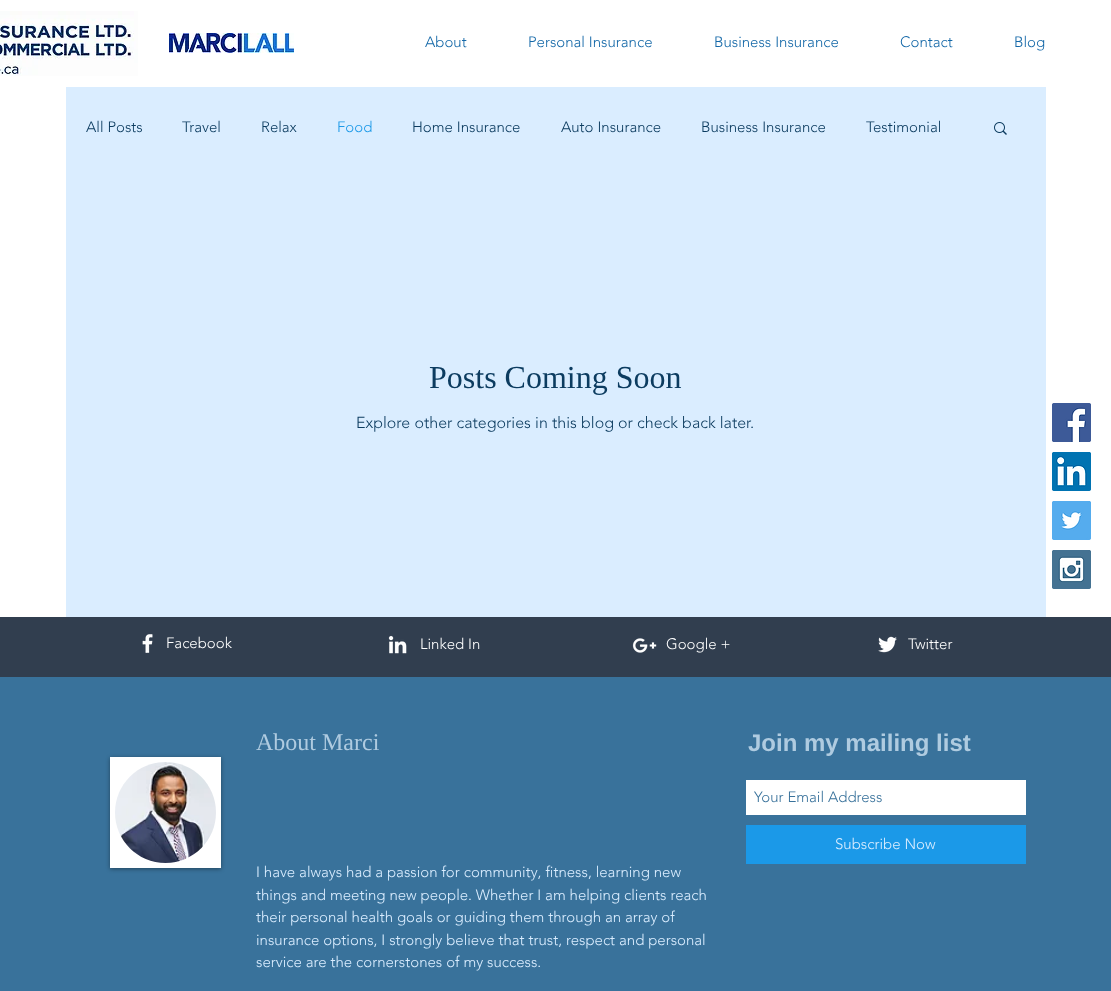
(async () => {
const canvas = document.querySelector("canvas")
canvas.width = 1111
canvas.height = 991
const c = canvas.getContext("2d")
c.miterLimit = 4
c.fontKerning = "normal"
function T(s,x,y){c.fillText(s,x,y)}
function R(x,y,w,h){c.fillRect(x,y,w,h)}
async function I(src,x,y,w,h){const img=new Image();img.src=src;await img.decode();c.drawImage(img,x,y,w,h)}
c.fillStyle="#fff"
R(0,0,1111,991)
await I("1.png",0,11,138,65)
await I("2.png",169,33,125,20)
c.font="300 15px 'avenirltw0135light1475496'"
c.fillStyle="#1468a8"
T("About",425,47)
T("Personal Insurance",528,47)
T("Business Insurance",714,47)
T("Contact",900,47)
T("Blog",1014,47)
c.fillStyle="#daedff"
R(66,87,980,530)
c.fillStyle="#0c3c60"
T("All Posts",86,132)
T("Travel",182,132)
T("Relax",261,132)
c.fillStyle="#1b99e8"
T("Food",337,132)
c.fillStyle="#0c3c60"
T("Home Insurance",412,132)
T("Auto Insurance",561,132)
T("Business Insurance",701,132)
T("Testimonial",866,132)
await I("3.png",994,122,13,13)
c.font="32px Liberation Serif"
T("Posts Coming Soon",429,388)
c.font="300 16px 'avenirltw0135light1475496'"
T("Explore other categories in this blog or check back later.",356,428)
await I("4.png",1052,403,39,39)
await I("5.png",1052,452,39,39)
await I("6.png",1052,501,39,39)
await I("7.png",1052,550,39,39)
c.fillStyle="#313e4f"
R(0,617,1111,60)
await I("8.png",142,634,11,19)
c.font="300 15px 'avenirltw0135light1475496'"
c.fillStyle="#fff"
T("Facebook",166,648)
await I("9.png",388,635,19,19)
T("Linked In",420,649)
await I("10.png",632,638,25,15)
T("Google +",666,649)
await I("11.png",878,636,19,17)
T("Twitter",908,649)
c.fillStyle="#39729b"
R(0,677,1111,314)
c.fillStyle="#00000066"
c.filter="blur(2px)"
c.beginPath()
c.rect(110,758,111,111)
c.fill()
c.filter="none"
c.fillStyle="#fff"
R(110,757,111,111)
await I("12.png",115,762,101,101)
c.font="24px Liberation Serif"
c.fillStyle="#afcbe0"
T("About Marci",256,750)
c.font="bold 24px Liberation Sans"
T("Join my mailing list",748,751)
c.fillStyle="#fff"
R(746,780,280,35)
c.font="300 15px 'avenirltw0135light1475496'"
c.fillStyle="#39729b"
T("Your Email Address",754,802)
c.fillStyle="#1b99e8"
R(746,825,280,39)
c.fillStyle="#daedff"
T("Subscribe Now",835,849)
T("I have always had a passion for community, fitness, learning new",256,877)
T("things and meeting new people. Whether I am helping clients reach",256,900)
T("their personal health goals or guiding them through an array of",256,922)
T("insurance options, I strongly believe that trust, respect and personal",256,945)
T("service are the cornerstones of my success.",256,967)
})()
